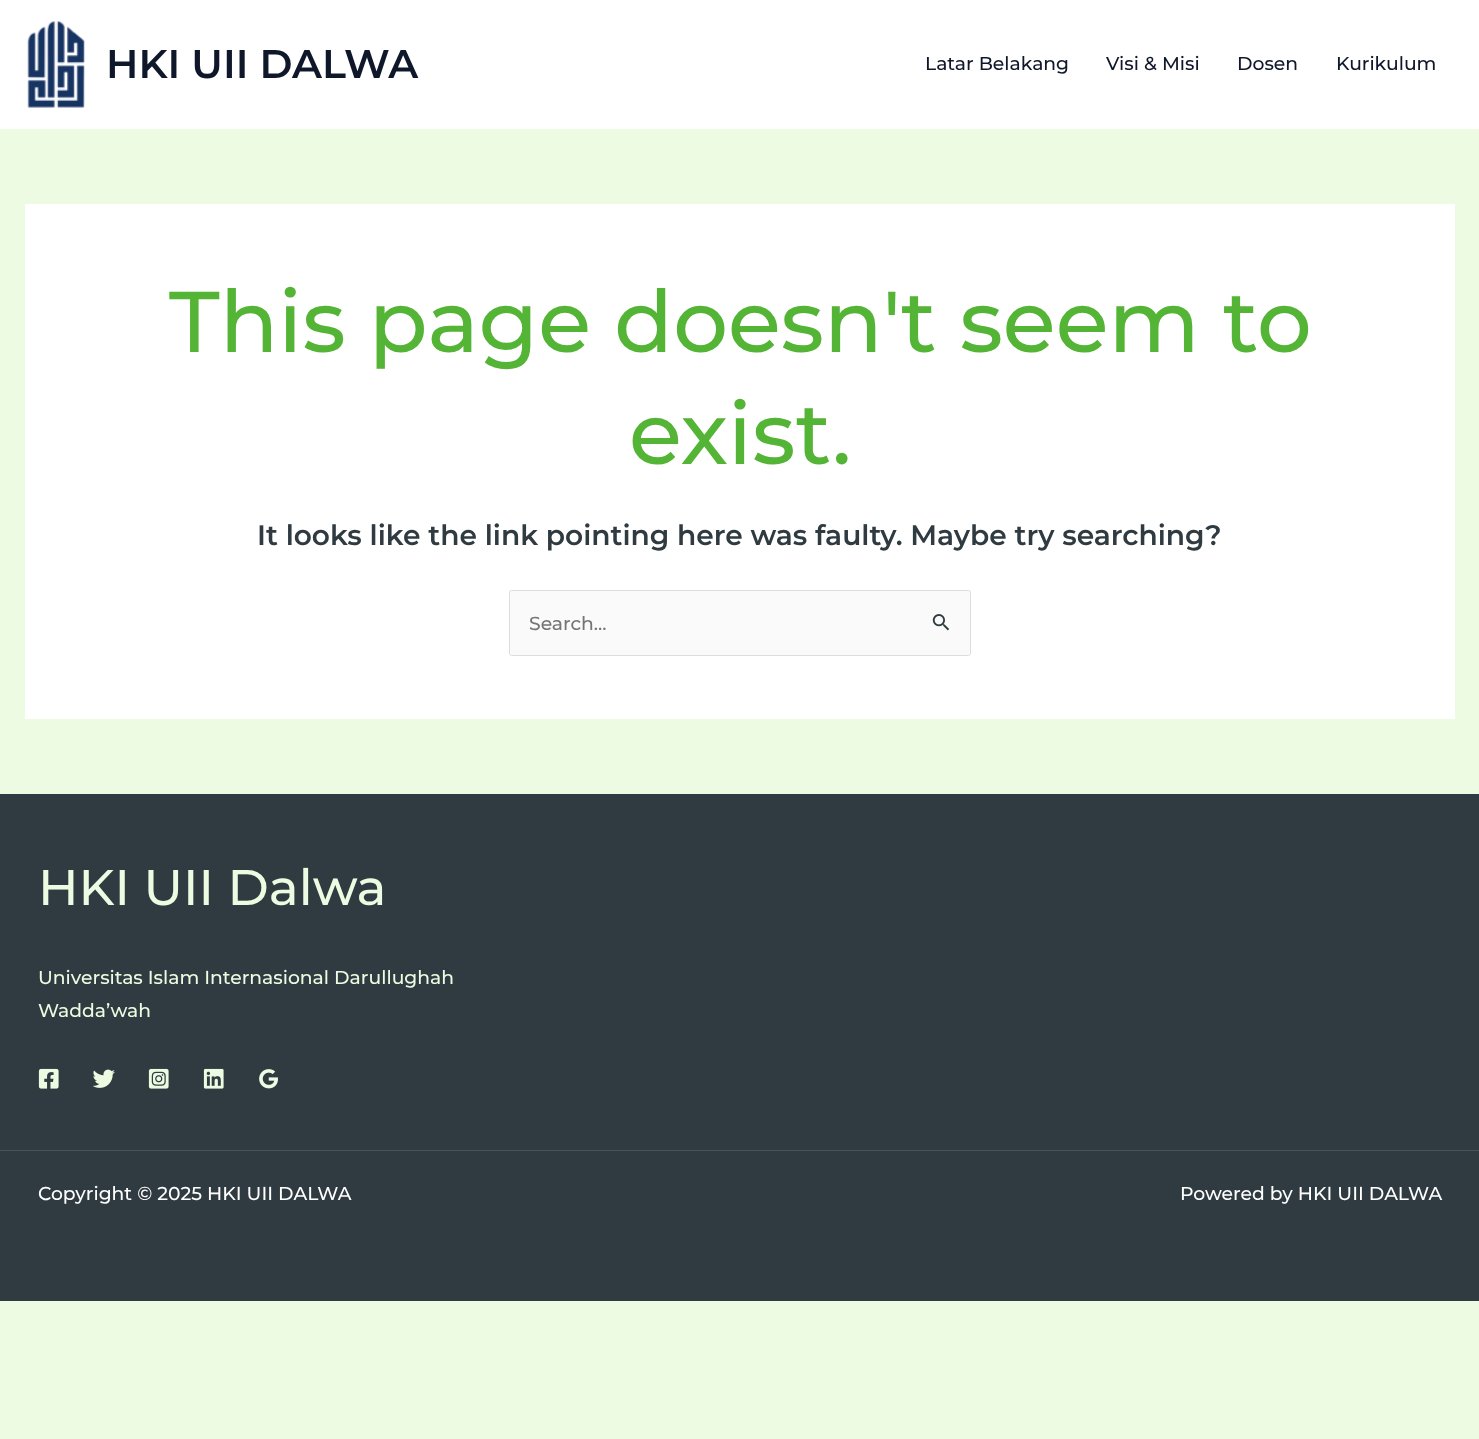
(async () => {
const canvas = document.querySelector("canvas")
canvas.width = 1479
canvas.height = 1439
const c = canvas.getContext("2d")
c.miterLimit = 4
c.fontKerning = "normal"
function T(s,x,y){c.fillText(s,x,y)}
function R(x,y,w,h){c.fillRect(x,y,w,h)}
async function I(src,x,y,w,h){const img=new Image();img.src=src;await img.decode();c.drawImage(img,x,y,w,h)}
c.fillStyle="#edfbe2"
R(0,0,1479,1439)
c.fillStyle="#fff"
R(0,0,1479,129)
await I("1.png",27,21,58,87)
c.font="600 40px Montserrat"
c.fillStyle="#0f172a"
T("HKI UII DALWA",106,78)
c.font="500 18.75px Montserrat"
T("Latar Belakang",925,70)
T("Visi & Misi",1106,70)
T("Dosen",1237,70)
T("Kurikulum",1336,70)
c.fillStyle="#fff"
R(25,204,1430,515)
c.font="500 86.25px Montserrat"
c.fillStyle="#54b435"
T("This page doesn't seem to",169,352)
T("exist.",629,464)
c.font="600 28.1px Montserrat"
c.fillStyle="#2f3b40"
T("It looks like the link pointing here was faulty. Maybe try searching?",257,545)
c.fillStyle="#fafafa"
c.beginPath()
c.roundRect(509.5,590.5,461,65,2)
c.fill()
c.strokeStyle="#ddd"
c.stroke()
c.font="500 18.75px Montserrat"
c.fillStyle="#757575"
T("Search...",529,630)
await I("2.png",932,614,18,17)
c.fillStyle="#2f3b40"
R(0,794,1479,507)
c.font="500 50px Montserrat"
c.fillStyle="#edfbe2"
T("HKI UII Dalwa",38,905)
c.font="500 18.75px Montserrat"
T("Universitas Islam Internasional Darullughah",38,984)
T("Wadda’wah",38,1017)
await I("3.png",38,1068,21,21)
await I("4.png",93,1069,22,19)
await I("5.png",148,1068,21,21)
await I("6.png",203,1068,21,21)
await I("7.png",259,1069,19,20)
c.fillStyle="#485357"
R(0,1150,1479,1)
c.fillStyle="#fff"
T("Copyright © 2025 HKI UII DALWA",38,1200)
T("Powered by HKI UII DALWA",1180,1200)
})()
